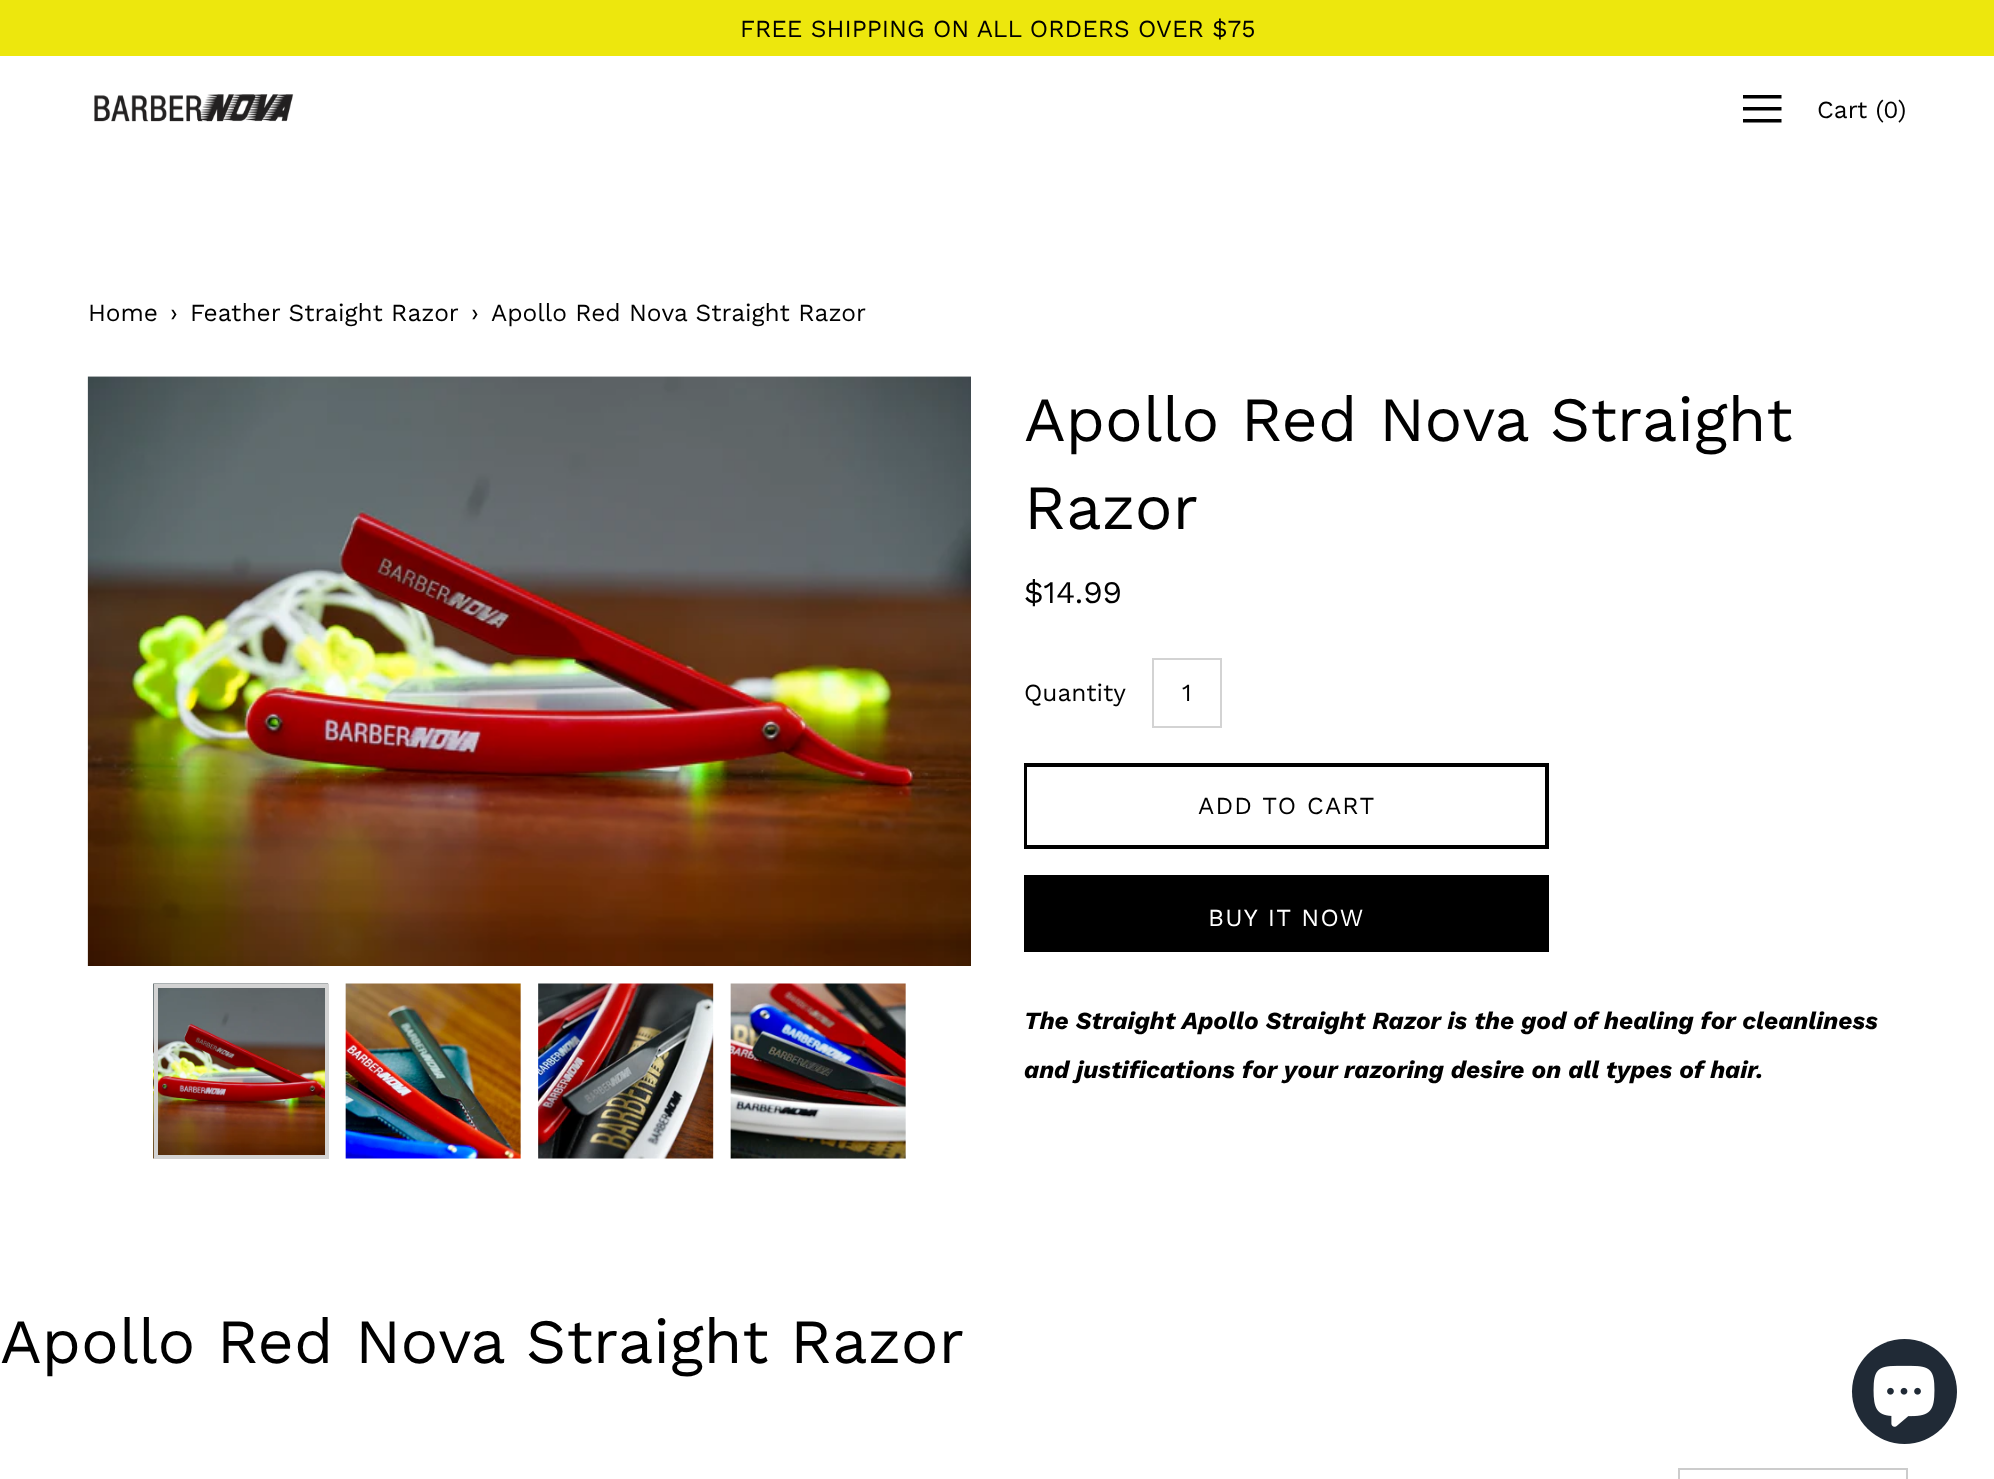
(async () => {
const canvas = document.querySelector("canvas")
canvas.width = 1994
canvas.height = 1479
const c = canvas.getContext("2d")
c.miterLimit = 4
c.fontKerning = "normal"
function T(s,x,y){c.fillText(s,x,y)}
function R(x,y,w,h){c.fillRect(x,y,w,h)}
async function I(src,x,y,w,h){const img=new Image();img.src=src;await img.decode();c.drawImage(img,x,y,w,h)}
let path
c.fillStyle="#fff"
R(0,0,1994,1479)
c.fillStyle="#ede70d"
R(0,0,1994,56)
c.font="24.5px Work Sans"
c.fillStyle="#000"
T("FREE SHIPPING ON ALL ORDERS OVER $75",740,37)
await I("1.png",94,94,200,28)
path = new Path2D("M1743 95v3.5h38.5v-3.5zm0 12v3.5h38.5v-3.5zm0 12v3.5h38.5v-3.5z")
c.fill(path)
T("Cart (0)",1817,118)
T("Home",88,321)
T("›",170,321)
T("Feather Straight Razor",190,321)
T("›",471,321)
T("Apollo Red Nova Straight Razor",491,321)
await I("2.png",87,376,884,590)
await I("3.png",153,983,176,176)
c.strokeStyle="#d3d3d3"
c.lineWidth=4
c.strokeRect(156,986,171,171)
await I("4.png",345,983,176,176)
await I("5.png",538,983,176,176)
await I("6.png",730,983,176,176)
c.font="63px Work Sans"
T("Apollo Red Nova Straight",1024,441)
T("Razor",1024,529)
c.font="31.5px Work Sans"
T("$14.99",1024,603)
c.font="24.5px Work Sans"
T("Quantity",1024,701)
c.lineWidth=2
c.strokeRect(1153,659,68,68)
T("1",1182,701)
R(1024,763,525,86)
c.fillStyle="#fff"
R(1027,767,518,78)
c.letterSpacing="1.25px"
c.fillStyle="#000"
T("ADD TO CART",1198,814)
c.strokeStyle="#000"
c.lineWidth=4
c.strokeRect(1026,877,521,73)
R(1028,879,517,69)
c.fillStyle="#fff"
T("BUY IT NOW",1208,926)
c.letterSpacing="0px"
c.font="italic bold 24.5px Work Sans"
c.fillStyle="#000"
T("The Straight Apollo Straight Razor is the god of healing for cleanliness",1024,1029)
T("and justifications for your razoring desire on all types of hair.",1024,1078)
c.font="63px Work Sans"
T("Apollo Red Nova Straight Razor",0,1363)
c.strokeStyle="#ccc"
c.lineWidth=2
c.strokeRect(1679,1469,228,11)
c.fillStyle="#202a36"
c.beginPath()
c.arc(1904.5,1391.5,52.5,0,7)
c.fill()
await I("7.png",1873,1365,62,62)
})()
